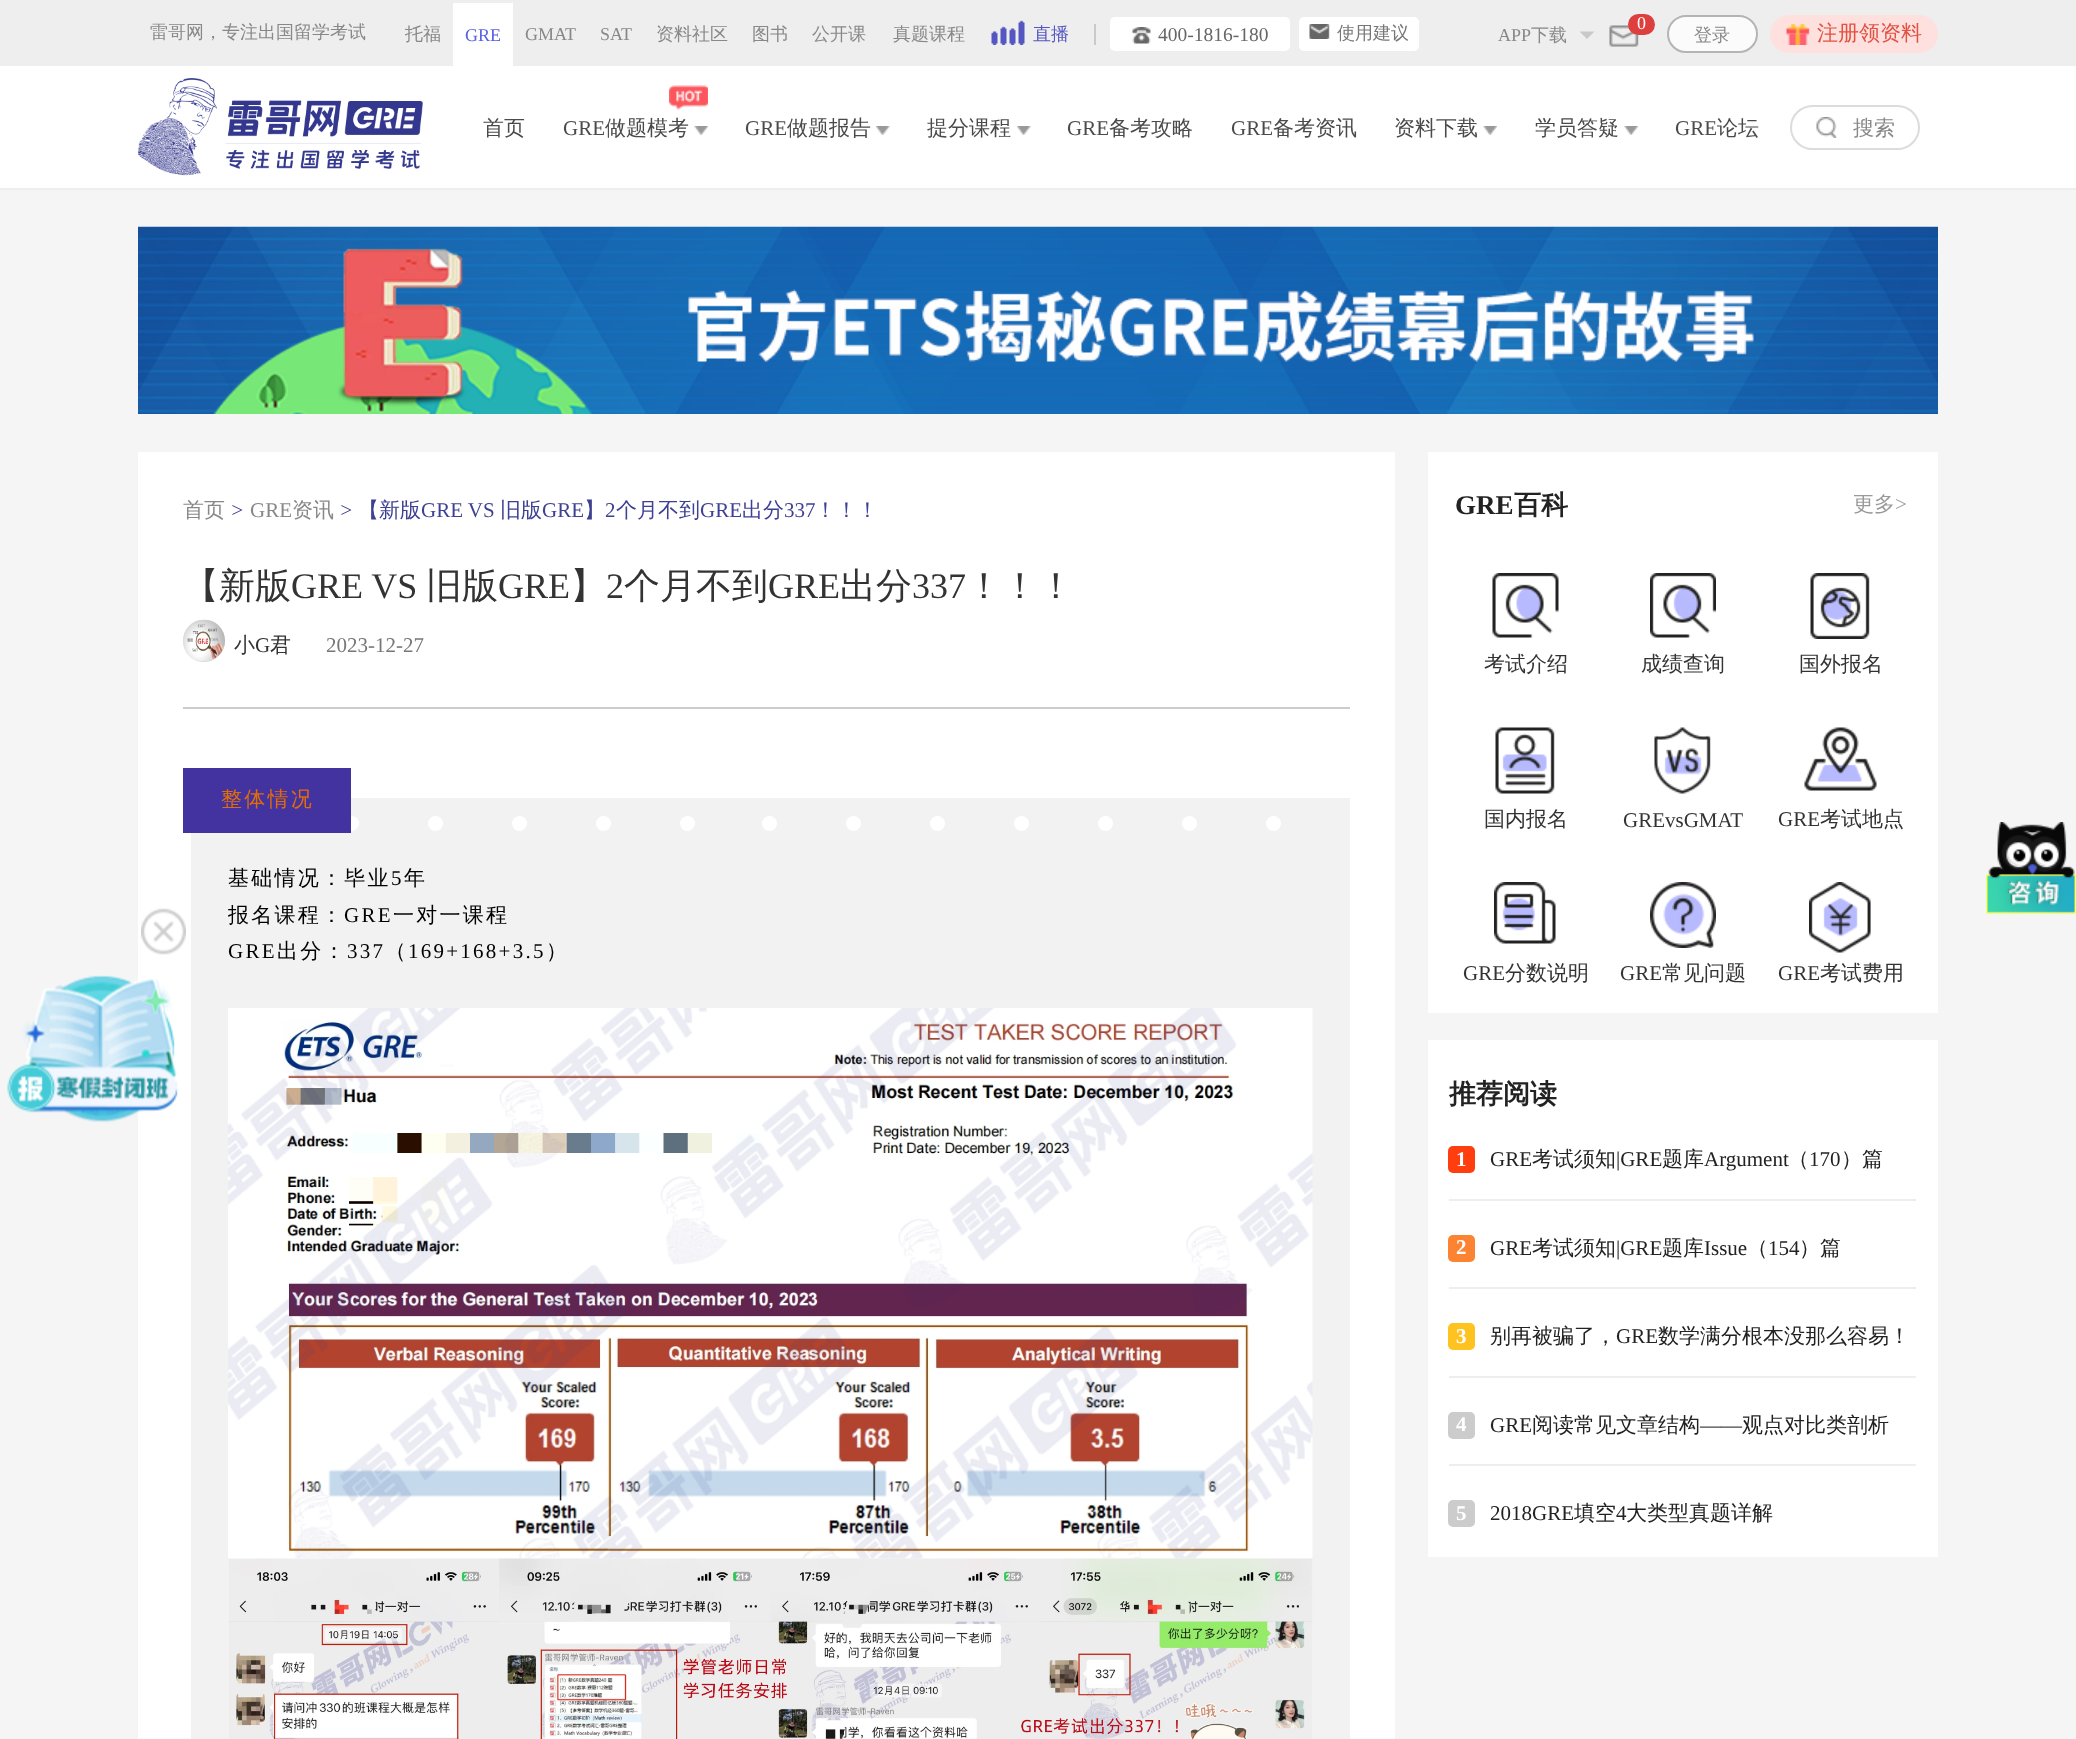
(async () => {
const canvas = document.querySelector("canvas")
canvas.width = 2076
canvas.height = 1739
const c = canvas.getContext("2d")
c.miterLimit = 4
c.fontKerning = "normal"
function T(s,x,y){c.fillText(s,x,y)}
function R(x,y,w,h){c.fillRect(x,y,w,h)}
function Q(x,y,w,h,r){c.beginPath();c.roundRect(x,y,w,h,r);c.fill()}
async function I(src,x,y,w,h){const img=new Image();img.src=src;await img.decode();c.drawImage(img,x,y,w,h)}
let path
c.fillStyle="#f5f5f5"
R(0,0,2076,1739)
c.fillStyle="#eee"
R(0,0,2076,66)
c.font="500 18px WenQuanYi Zen Hei"
c.fillStyle="#888"
T("雷哥网，专注出国留学考试",150,38)
T("托福",405,40)
c.fillStyle="#fff"
R(453,3,60,63)
c.font="18px Liberation Serif"
c.fillStyle="#5a5ee4"
T("GRE",465,41)
c.fillStyle="#888"
T("GMAT",525,40)
T("SAT",600,40)
c.font="500 18px WenQuanYi Zen Hei"
T("资料社区",656,40)
T("图书",752,40)
T("公开课",812,40)
T("真题课程",893,40)
await I("1.png",991,20,34,25)
c.fillStyle="#5457c0"
T("直播",1033,40)
c.fillStyle="#cacaca"
R(1094,24,2,21)
c.fillStyle="#fff"
Q(1110,17,180,34,5)
await I("2.png",1132,27,19,17)
c.font="19.5px Liberation Serif"
c.fillStyle="#666"
T("400-1816-180",1158,41)
c.fillStyle="#fff"
Q(1299,17,120,34,5)
await I("3.png",1309,24,21,15)
c.font="500 18px WenQuanYi Zen Hei"
c.fillStyle="#777"
T("使用建议",1337,39)
c.font="18px Liberation Serif"
c.fillStyle="#888"
T("APP",1498,41)
c.font="500 18px WenQuanYi Zen Hei"
T("下载",1531,41)
c.fillStyle="#c9c9c9"
path = new Path2D("M1579.5 31.5h15l-7.5 7.5z")
c.fill(path)
await I("4.png",1609,25,30,22)
c.fillStyle="#dd3e3e"
Q(1628,14,27,21,10.5)
c.font="18px Liberation Serif"
c.fillStyle="#fff"
T("0",1637,29)
c.fillStyle="#fbfbfb"
c.beginPath()
c.roundRect(1668,16,89,36,18)
c.fill()
c.strokeStyle="#b4b4b4"
c.lineWidth=2
c.stroke()
c.font="500 18px WenQuanYi Zen Hei"
c.fillStyle="#888"
T("登录",1694,41)
c.fillStyle="#fee1de"
Q(1770,15,168,38,19)
await I("5.png",1786,24,24,21)
c.font="500 21px WenQuanYi Zen Hei"
c.fillStyle="#e25142"
T("注册领资料",1817,40)
c.fillStyle="#fff"
R(0,66,2076,122)
c.fillStyle="#eee"
R(0,188,2076,2)
await I("6.png",138,78,285,98)
c.fillStyle="#4a4a4a"
T("首页",483,135)
await I("7.png",669,85,39,25)
c.font="21px Liberation Serif"
T("GRE",563,135)
c.font="500 21px WenQuanYi Zen Hei"
T("做题模考",605,135)
await I("8.png",694,126,14,9)
c.font="21px Liberation Serif"
T("GRE",745,135)
c.font="500 21px WenQuanYi Zen Hei"
T("做题报告",787,135)
await I("9.png",876,126,14,9)
T("提分课程",927,135)
await I("9.png",1017,126,14,9)
c.font="21px Liberation Serif"
T("GRE",1067,135)
c.font="500 21px WenQuanYi Zen Hei"
T("备考攻略",1109,135)
c.font="21px Liberation Serif"
T("GRE",1231,135)
c.font="500 21px WenQuanYi Zen Hei"
T("备考资讯",1273,135)
T("资料下载",1394,135)
await I("8.png",1483,126,14,9)
T("学员答疑",1535,135)
await I("10.png",1624,126,14,9)
c.font="21px Liberation Serif"
T("GRE",1675,135)
c.font="500 21px WenQuanYi Zen Hei"
T("论坛",1717,135)
await I("11.png",1816,117,21,21)
c.beginPath()
c.roundRect(1791,106,128,43,21.5)
c.strokeStyle="#dcdcdc"
c.stroke()
c.fillStyle="#888"
T("搜索",1853,135)
await I("12.png",138,226,1800,188)
c.fillStyle="#fff"
R(138,452,1257,1287)
c.fillStyle="#888"
T("首页",183,517)
c.font="italic 21px Liberation Serif"
c.fillStyle="#3e4093"
T(">",230,517)
c.font="21px Liberation Serif"
c.fillStyle="#888"
T("GRE",250,517)
c.font="500 21px WenQuanYi Zen Hei"
T("资讯",292,517)
c.font="italic 21px Liberation Serif"
c.fillStyle="#3e4093"
T(">",339,517)
c.font="500 21px WenQuanYi Zen Hei"
T("【新版",358,517)
c.font="21px Liberation Serif"
T("GRE VS",421,517)
c.font="500 21px WenQuanYi Zen Hei"
T("旧版",500,517)
c.font="21px Liberation Serif"
T("GRE",542,517)
c.font="500 21px WenQuanYi Zen Hei"
T("】",584,517)
c.font="21px Liberation Serif"
T("2",605,517)
c.font="500 21px WenQuanYi Zen Hei"
T("个月不到",616,517)
c.font="21px Liberation Serif"
T("GRE",700,517)
c.font="500 21px WenQuanYi Zen Hei"
T("出分",742,517)
c.font="21px Liberation Serif"
T("337",784,517)
c.font="500 21px WenQuanYi Zen Hei"
T("！！！",815,517)
c.font="500 36px WenQuanYi Zen Hei"
c.fillStyle="#333"
T("【新版",183,598)
c.font="36px Liberation Serif"
T("GRE VS",291,598)
c.font="500 36px WenQuanYi Zen Hei"
T("旧版",426,598)
c.font="36px Liberation Serif"
T("GRE",498,598)
c.font="500 36px WenQuanYi Zen Hei"
T("】",570,598)
c.font="36px Liberation Serif"
T("2",606,598)
c.font="500 36px WenQuanYi Zen Hei"
T("个月不到",624,598)
c.font="36px Liberation Serif"
T("GRE",768,598)
c.font="500 36px WenQuanYi Zen Hei"
T("出分",840,598)
c.font="36px Liberation Serif"
T("337",912,598)
c.font="500 36px WenQuanYi Zen Hei"
T("！！！",966,598)
c.fillStyle="#ccc"
R(183,707,1167,2)
c.fillStyle="#dcdcdc"
c.beginPath()
c.arc(204,641,21,0,7)
c.fill()
await I("13.png",183,619,42,42)
c.font="500 21px WenQuanYi Zen Hei"
c.fillStyle="#333"
T("小",234,652)
c.font="21px Liberation Serif"
T("G",255,652)
c.font="500 21px WenQuanYi Zen Hei"
T("君",270,652)
c.font="21px Liberation Serif"
c.fillStyle="#777"
T("2023-12-27",326,652)
c.fillStyle="#f2f2f2"
R(191,798,1159,941)
c.fillStyle="#fff"
c.beginPath()
c.arc(351.5,823.5,7.5,0,7)
c.fill()
c.fillStyle="#4333a1"
R(183,768,168,65)
c.letterSpacing="2.25px"
c.font="500 21px WenQuanYi Zen Hei"
c.fillStyle="#e36c09"
T("整体情况",221,806)
c.fillStyle="#fff"
c.beginPath()
c.arc(435.5,823.5,7.5,0,7)
c.fill()
c.beginPath()
c.arc(519.5,823.5,7.5,0,7)
c.fill()
c.beginPath()
c.arc(603.5,823.5,7.5,0,7)
c.fill()
c.beginPath()
c.arc(687.5,823.5,7.5,0,7)
c.fill()
c.beginPath()
c.arc(769.5,823.5,7.5,0,7)
c.fill()
c.beginPath()
c.arc(853.5,823.5,7.5,0,7)
c.fill()
c.beginPath()
c.arc(937.5,823.5,7.5,0,7)
c.fill()
c.beginPath()
c.arc(1021.5,823.5,7.5,0,7)
c.fill()
c.beginPath()
c.arc(1105.5,823.5,7.5,0,7)
c.fill()
c.beginPath()
c.arc(1189.5,823.5,7.5,0,7)
c.fill()
c.beginPath()
c.arc(1273.5,823.5,7.5,0,7)
c.fill()
c.fillStyle="#000"
T("基础情况：毕业",228,885)
c.font="21px Liberation Serif"
T("5",391,885)
c.font="500 21px WenQuanYi Zen Hei"
T("年",404,885)
T("报名课程：",228,922)
c.font="21px Liberation Serif"
T("GRE",344,922)
c.font="500 21px WenQuanYi Zen Hei"
T("一对一课程",393,922)
c.font="21px Liberation Serif"
T("GRE",228,958)
c.font="500 21px WenQuanYi Zen Hei"
T("出分：",277,958)
c.font="21px Liberation Serif"
T("337",347,958)
c.font="500 21px WenQuanYi Zen Hei"
T("（",385,958)
c.font="21px Liberation Serif"
T("169+168+3.5",408,958)
c.font="500 21px WenQuanYi Zen Hei"
T("）",546,958)
await I("14.png",228,1008,1085,551)
await I("15.png",228,1558,1085,181)
c.fillStyle="#fff"
R(1428,452,510,561)
c.letterSpacing="0px"
c.font="bold 27px Liberation Serif"
c.fillStyle="#222"
T("GRE",1455,514)
c.font="bold 27px WenQuanYi Zen Hei"
T("百科",1514,514)
c.font="500 21px WenQuanYi Zen Hei"
c.fillStyle="#999"
T("更多",1853,511)
c.font="21px Liberation Serif"
T(">",1895,511)
await I("16.png",1492,573,67,65)
c.font="500 21px WenQuanYi Zen Hei"
c.fillStyle="#333"
T("考试介绍",1484,671)
await I("17.png",1650,573,66,65)
T("成绩查询",1641,671)
await I("18.png",1810,573,60,66)
T("国外报名",1799,671)
await I("19.png",1495,727,60,67)
T("国内报名",1484,826)
await I("20.png",1654,727,57,67)
c.font="21px Liberation Serif"
T("GREvsGMAT",1623,827)
await I("21.png",1804,727,73,64)
T("GRE",1778,826)
c.font="500 21px WenQuanYi Zen Hei"
T("考试地点",1820,826)
await I("22.png",1494,882,62,62)
c.font="21px Liberation Serif"
T("GRE",1463,980)
c.font="500 21px WenQuanYi Zen Hei"
T("分数说明",1505,980)
await I("23.png",1650,882,66,66)
c.font="21px Liberation Serif"
T("GRE",1620,980)
c.font="500 21px WenQuanYi Zen Hei"
T("常见问题",1662,980)
await I("24.png",1809,882,62,71)
c.font="21px Liberation Serif"
T("GRE",1778,980)
c.font="500 21px WenQuanYi Zen Hei"
T("考试费用",1820,980)
c.fillStyle="#fff"
R(1428,1040,510,517)
c.font="bold 27px WenQuanYi Zen Hei"
c.fillStyle="#222"
T("推荐阅读",1449,1103)
c.fillStyle="#eee"
R(1449,1199,467,2)
c.fillStyle="#ff3e0f"
Q(1448,1146,27,27,5)
c.font="bold 21px Liberation Serif"
c.fillStyle="#fff"
T("1",1456,1166)
c.font="21px Liberation Serif"
c.fillStyle="#222"
T("GRE",1490,1166)
c.font="500 21px WenQuanYi Zen Hei"
T("考试须知",1532,1166)
c.font="21px Liberation Serif"
T("|GRE",1616,1166)
c.font="500 21px WenQuanYi Zen Hei"
T("题库",1662,1166)
c.font="21px Liberation Serif"
T("Argument",1704,1166)
c.font="500 21px WenQuanYi Zen Hei"
T("（",1788,1166)
c.font="21px Liberation Serif"
T("170",1809,1166)
c.font="500 21px WenQuanYi Zen Hei"
T("）篇",1841,1166)
c.fillStyle="#eee"
R(1449,1287,467,2)
c.fillStyle="#fb8331"
Q(1448,1235,27,27,5)
c.font="bold 21px Liberation Serif"
c.fillStyle="#fff"
T("2",1456,1254)
c.font="21px Liberation Serif"
c.fillStyle="#222"
T("GRE",1490,1255)
c.font="500 21px WenQuanYi Zen Hei"
T("考试须知",1532,1255)
c.font="21px Liberation Serif"
T("|GRE",1616,1255)
c.font="500 21px WenQuanYi Zen Hei"
T("题库",1662,1255)
c.font="21px Liberation Serif"
T("Issue",1704,1255)
c.font="500 21px WenQuanYi Zen Hei"
T("（",1747,1255)
c.font="21px Liberation Serif"
T("154",1768,1255)
c.font="500 21px WenQuanYi Zen Hei"
T("）篇",1799,1255)
c.fillStyle="#eee"
R(1449,1376,467,2)
c.fillStyle="#ffc321"
Q(1448,1323,27,27,5)
c.font="bold 21px Liberation Serif"
c.fillStyle="#fff"
T("3",1456,1343)
c.font="500 21px WenQuanYi Zen Hei"
c.fillStyle="#222"
T("别再被骗了，",1490,1343)
c.font="21px Liberation Serif"
T("GRE",1616,1343)
c.font="500 21px WenQuanYi Zen Hei"
T("数学满分根本没那么容易！",1658,1343)
c.fillStyle="#eee"
R(1449,1464,467,2)
c.fillStyle="#ccc"
Q(1448,1412,27,27,5)
c.font="bold 21px Liberation Serif"
c.fillStyle="#fff"
T("4",1456,1431)
c.font="21px Liberation Serif"
c.fillStyle="#222"
T("GRE",1490,1432)
c.font="500 21px WenQuanYi Zen Hei"
T("阅读常见文章结构",1532,1432)
c.font="21px Liberation Serif"
T("——",1700,1432)
c.font="500 21px WenQuanYi Zen Hei"
T("观点对比类剖析",1742,1432)
c.fillStyle="#ccc"
Q(1448,1500,27,27,5)
c.font="bold 21px Liberation Serif"
c.fillStyle="#fff"
T("5",1456,1520)
c.font="21px Liberation Serif"
c.fillStyle="#222"
T("2018GRE",1490,1520)
c.font="500 21px WenQuanYi Zen Hei"
T("填空",1574,1520)
c.font="21px Liberation Serif"
T("4",1616,1520)
c.font="500 21px WenQuanYi Zen Hei"
T("大类型真题详解",1626,1520)
await I("25.png",1986,822,90,93)
await I("26.png",141,908,45,47)
await I("27.png",7,975,172,148)
})()
